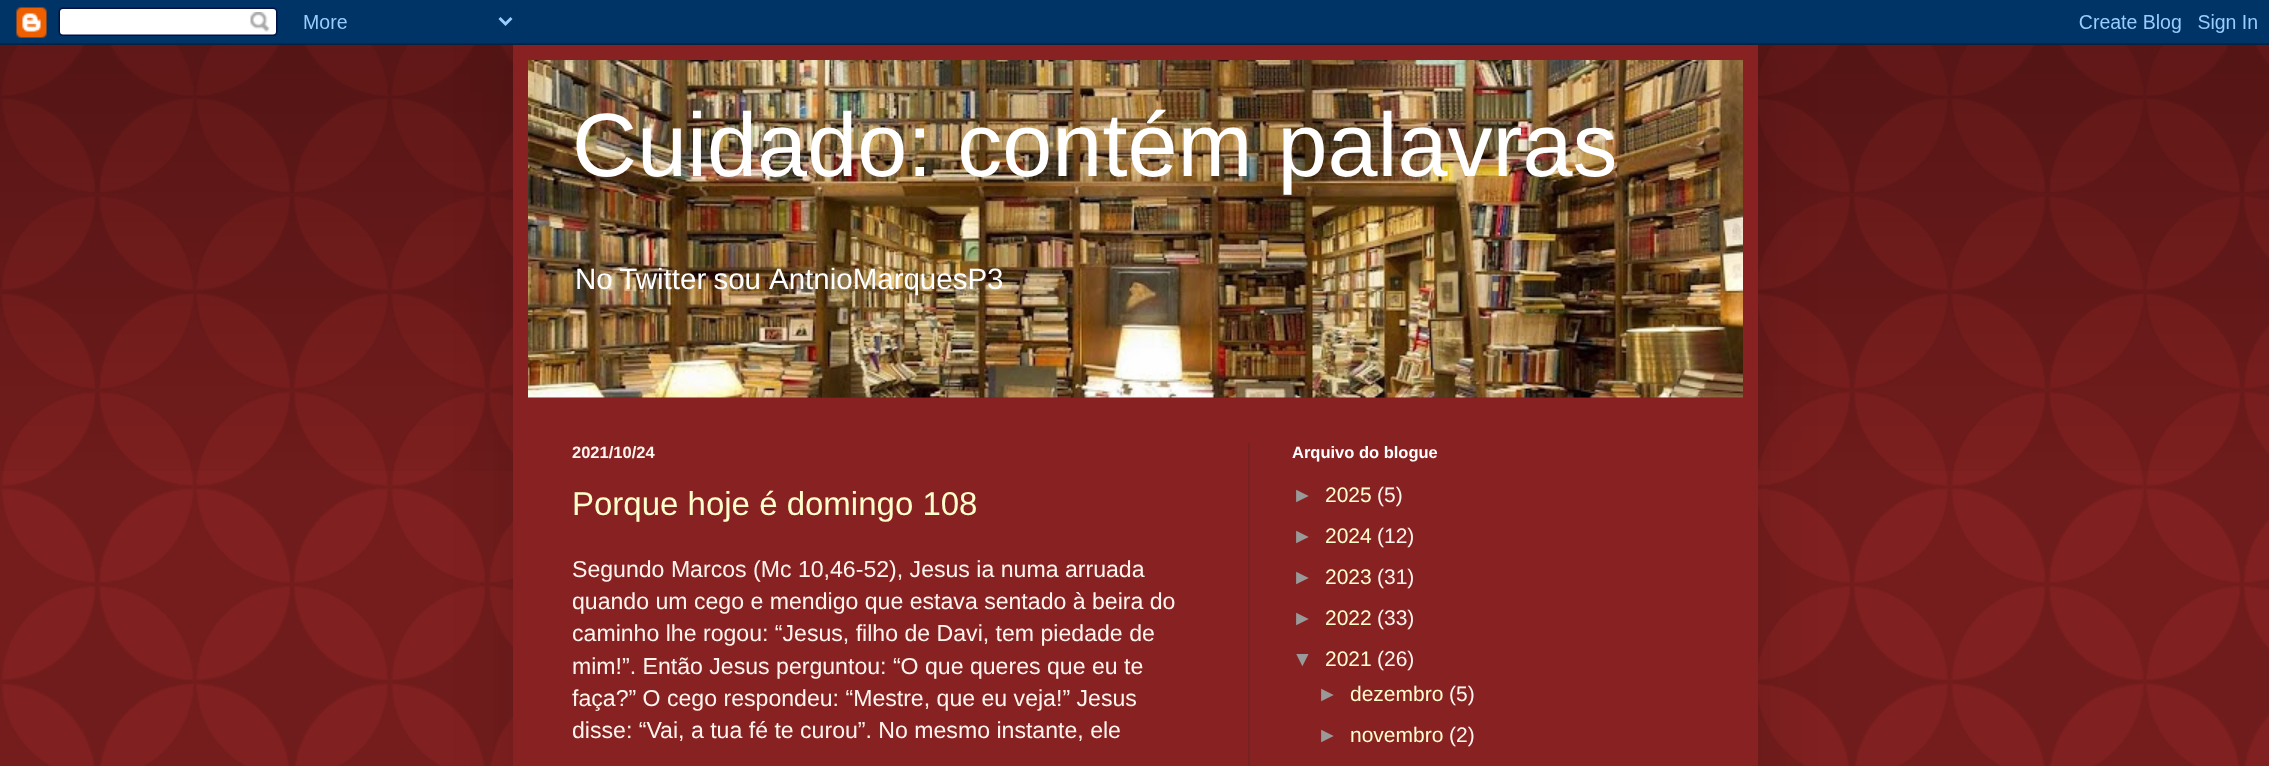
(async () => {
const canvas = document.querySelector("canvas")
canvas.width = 2269
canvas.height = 766
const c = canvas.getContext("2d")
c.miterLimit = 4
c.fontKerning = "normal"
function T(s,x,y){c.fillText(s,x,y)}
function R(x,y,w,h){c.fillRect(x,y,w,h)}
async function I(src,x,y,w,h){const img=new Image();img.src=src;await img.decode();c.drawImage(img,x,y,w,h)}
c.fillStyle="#822"
R(0,0,2269,766)
await I("1.png",0,43,2269,723)
await I("3.png",0,43,2269,428)
c.fillStyle="#00000026"
c.filter="blur(30px)"
c.beginPath()
c.rect(513,45,1245,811)
c.fill()
c.filter="none"
await I("2.png",0,0,2269,45)
c.fillStyle="#822"
R(513,45,1245,721)
await I("4.png",528,397,1215,1)
await I("5.png",528,60,1215,338)
c.font="90px Liberation Sans"
c.fillStyle="#fff"
T("Cuidado: contém palavras",572,176)
c.wordSpacing="-1px"
c.font="29.5px Liberation Sans"
T("No Twitter sou",575,289)
c.wordSpacing="0px"
T("AntnioMarquesP3",769,289)
c.fillStyle="#722"
R(1248,443,2,323)
c.font="bold 16.5px Liberation Sans"
c.fillStyle="#fff5ee"
T("2021/10/24",572,458)
c.font="33px Liberation Sans"
c.fillStyle="#ffc"
T("Porque hoje é domingo 108",572,515)
c.font="23.1px Liberation Sans"
c.fillStyle="#fff5ee"
T("Segundo Marcos (Mc 10,46-52), Jesus ia numa arruada",572,577)
T("quando um cego e mendigo que estava sentado à beira do",572,609)
T("caminho lhe rogou: “Jesus, filho de Davi, tem piedade de",572,641)
T("mim!”. Então Jesus perguntou: “O que queres que eu te",572,674)
T("faça?” O cego respondeu: “Mestre, que eu veja!” Jesus",572,706)
T("disse: “Vai, a tua fé te curou”. No mesmo instante, ele",572,738)
c.font="bold 16.5px Liberation Sans"
c.fillStyle="#fff"
T("Arquivo do blogue",1292,458)
c.font="21px Liberation Sans"
c.fillStyle="#999"
T("►",1292,502)
c.fillStyle="#ffc"
T("2025",1325,502)
c.fillStyle="#fff5ee"
T("(5)",1377,502)
c.fillStyle="#999"
T("►",1292,543)
c.fillStyle="#ffc"
T("2024",1325,543)
c.fillStyle="#fff5ee"
T("(12)",1377,543)
c.fillStyle="#999"
T("►",1292,584)
c.fillStyle="#ffc"
T("2023",1325,584)
c.fillStyle="#fff5ee"
T("(31)",1377,584)
c.fillStyle="#999"
T("►",1292,625)
c.fillStyle="#ffc"
T("2022",1325,625)
c.fillStyle="#fff5ee"
T("(33)",1377,625)
c.fillStyle="#999"
T("▼",1292,666)
c.fillStyle="#ffc"
T("2021",1325,666)
c.fillStyle="#fff5ee"
T("(26)",1377,666)
c.fillStyle="#999"
T("►",1317,701)
c.fillStyle="#ffc"
T("dezembro",1350,701)
c.fillStyle="#fff5ee"
T("(5)",1449,701)
c.fillStyle="#999"
T("►",1317,742)
c.fillStyle="#ffc"
T("novembro",1350,742)
c.fillStyle="#fff5ee"
T("(2)",1449,742)
})()
